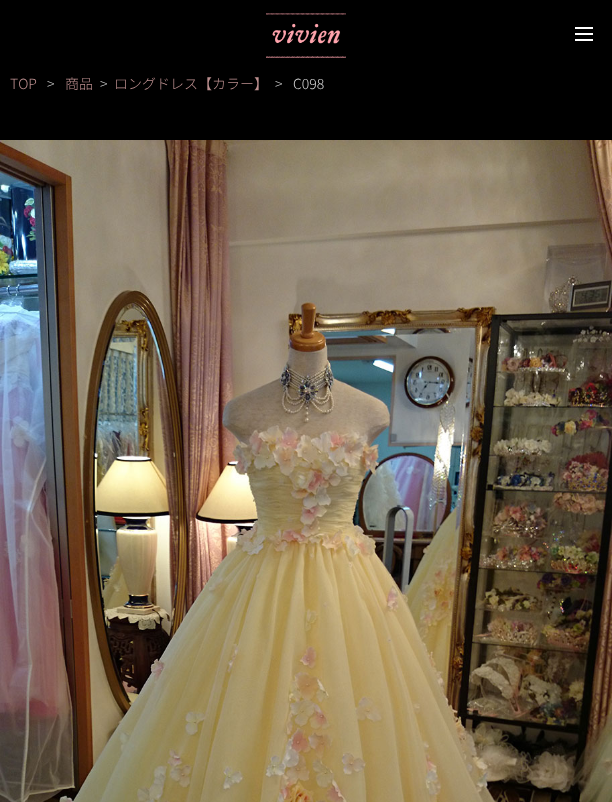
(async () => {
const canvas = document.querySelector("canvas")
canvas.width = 612
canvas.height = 802
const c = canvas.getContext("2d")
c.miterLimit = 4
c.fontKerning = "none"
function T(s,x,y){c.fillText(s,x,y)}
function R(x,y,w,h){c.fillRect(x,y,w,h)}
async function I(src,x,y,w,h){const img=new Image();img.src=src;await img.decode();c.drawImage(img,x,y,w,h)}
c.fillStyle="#000"
R(0,0,612,802)
await I("1.png",266,13,80,45)
c.fillStyle="#fff"
R(575,33,18,2)
R(575,27,18,2)
R(575,39,18,2)
c.font="300 14px Noto Sans JP"
c.fillStyle="#bc8f8f"
T("TOP",10,89)
c.fillStyle="#d3d3d3"
T(">",47,89)
c.fillStyle="#bc8f8f"
T("商品",65,89)
c.fillStyle="#d3d3d3"
T(">",100,89)
c.fillStyle="#bc8f8f"
T("ロングドレス【カラー】",114,89)
c.fillStyle="#d3d3d3"
T(">",275,89)
T("C098",293,89)
await I("2.png",0,140,612,662)
})()
